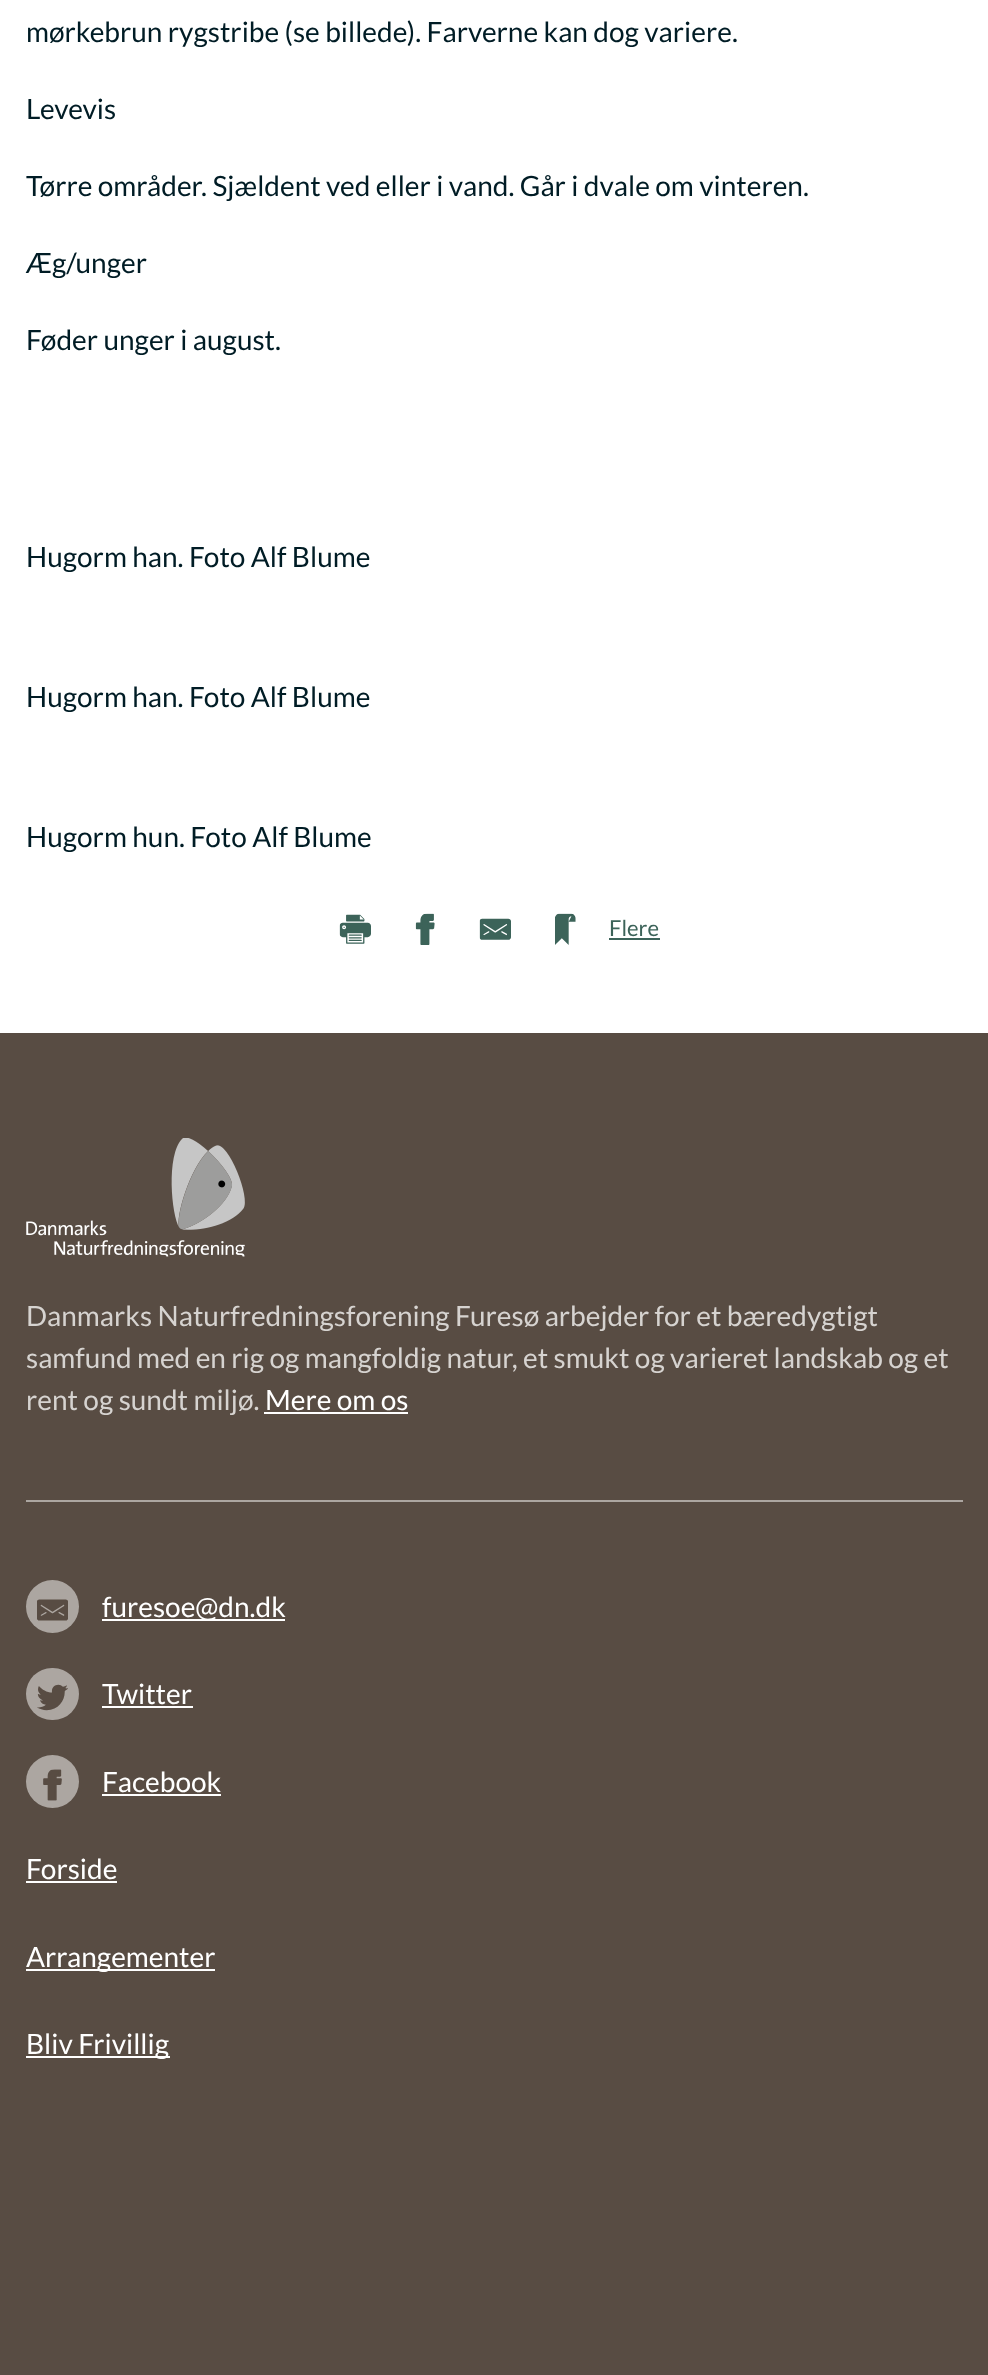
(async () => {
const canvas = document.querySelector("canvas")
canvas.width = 988
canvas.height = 2375
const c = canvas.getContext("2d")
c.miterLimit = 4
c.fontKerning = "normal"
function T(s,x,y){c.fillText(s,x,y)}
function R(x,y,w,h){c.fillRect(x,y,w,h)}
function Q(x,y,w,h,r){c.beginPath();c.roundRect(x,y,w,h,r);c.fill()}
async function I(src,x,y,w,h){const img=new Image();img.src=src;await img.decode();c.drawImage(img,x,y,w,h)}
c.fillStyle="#fff"
R(0,0,988,2375)
c.font="28px Lato"
c.fillStyle="#001c25"
T("mørkebrun rygstribe (se billede). Farverne kan dog variere.",26,42)
T("Levevis",26,119)
T("Tørre områder. Sjældent ved eller i vand. Går i dvale om vinteren.",26,196)
T("Æg/unger",26,273)
T("Føder unger i august.",26,350)
T("Hugorm han. Foto Alf Blume",26,567)
T("Hugorm han. Foto Alf Blume",26,707)
T("Hugorm hun. Foto Alf Blume",26,847)
await I("1.png",339,914,32,30)
await I("2.png",415,913,20,32)
await I("3.png",479,918,32,22)
await I("4.png",555,913,21,32)
c.font="22px Lato"
c.fillStyle="#3c6359"
T("Flere",609,936)
R(609,938,51,2)
c.fillStyle="#584c43"
R(0,1033,988,1342)
await I("5.png",26,1138,219,119)
c.fillStyle="#aca6a1"
R(26,1500,937,2)
c.font="28px Lato"
c.fillStyle="#d6d3d0"
T("Danmarks Naturfredningsforening Furesø arbejder for et bæredygtigt",26,1326)
T("samfund med en rig og mangfoldig natur, et smukt og varieret landskab og et",26,1368)
T("rent og sundt miljø.",26,1410)
c.fillStyle="#fff"
T("Mere om os",265,1410)
R(264,1412,144,2)
c.fillStyle="#aca6a1"
c.beginPath()
c.arc(52.5,1606.5,26.5,0,7)
c.fill()
await I("6.png",37,1599,31,22)
c.fillStyle="#fff"
R(102,1619,183,2)
T("furesoe@dn.dk",102,1617)
c.fillStyle="#aca6a1"
Q(26,1668,53,52,26)
await I("7.png",37,1684,31,27)
c.fillStyle="#fff"
T("Twitter",102,1704)
R(102,1706,91,2)
c.fillStyle="#aca6a1"
c.beginPath()
c.arc(52.5,1781.5,26.5,0,7)
c.fill()
await I("8.png",43,1769,19,32)
c.fillStyle="#fff"
T("Facebook",102,1792)
R(102,1794,119,2)
T("Forside",26,1879)
R(26,1881,91,2)
R(26,1969,189,2)
T("Arrangementer",26,1967)
R(26,2056,144,2)
T("Bliv Frivillig",26,2054)
})()
